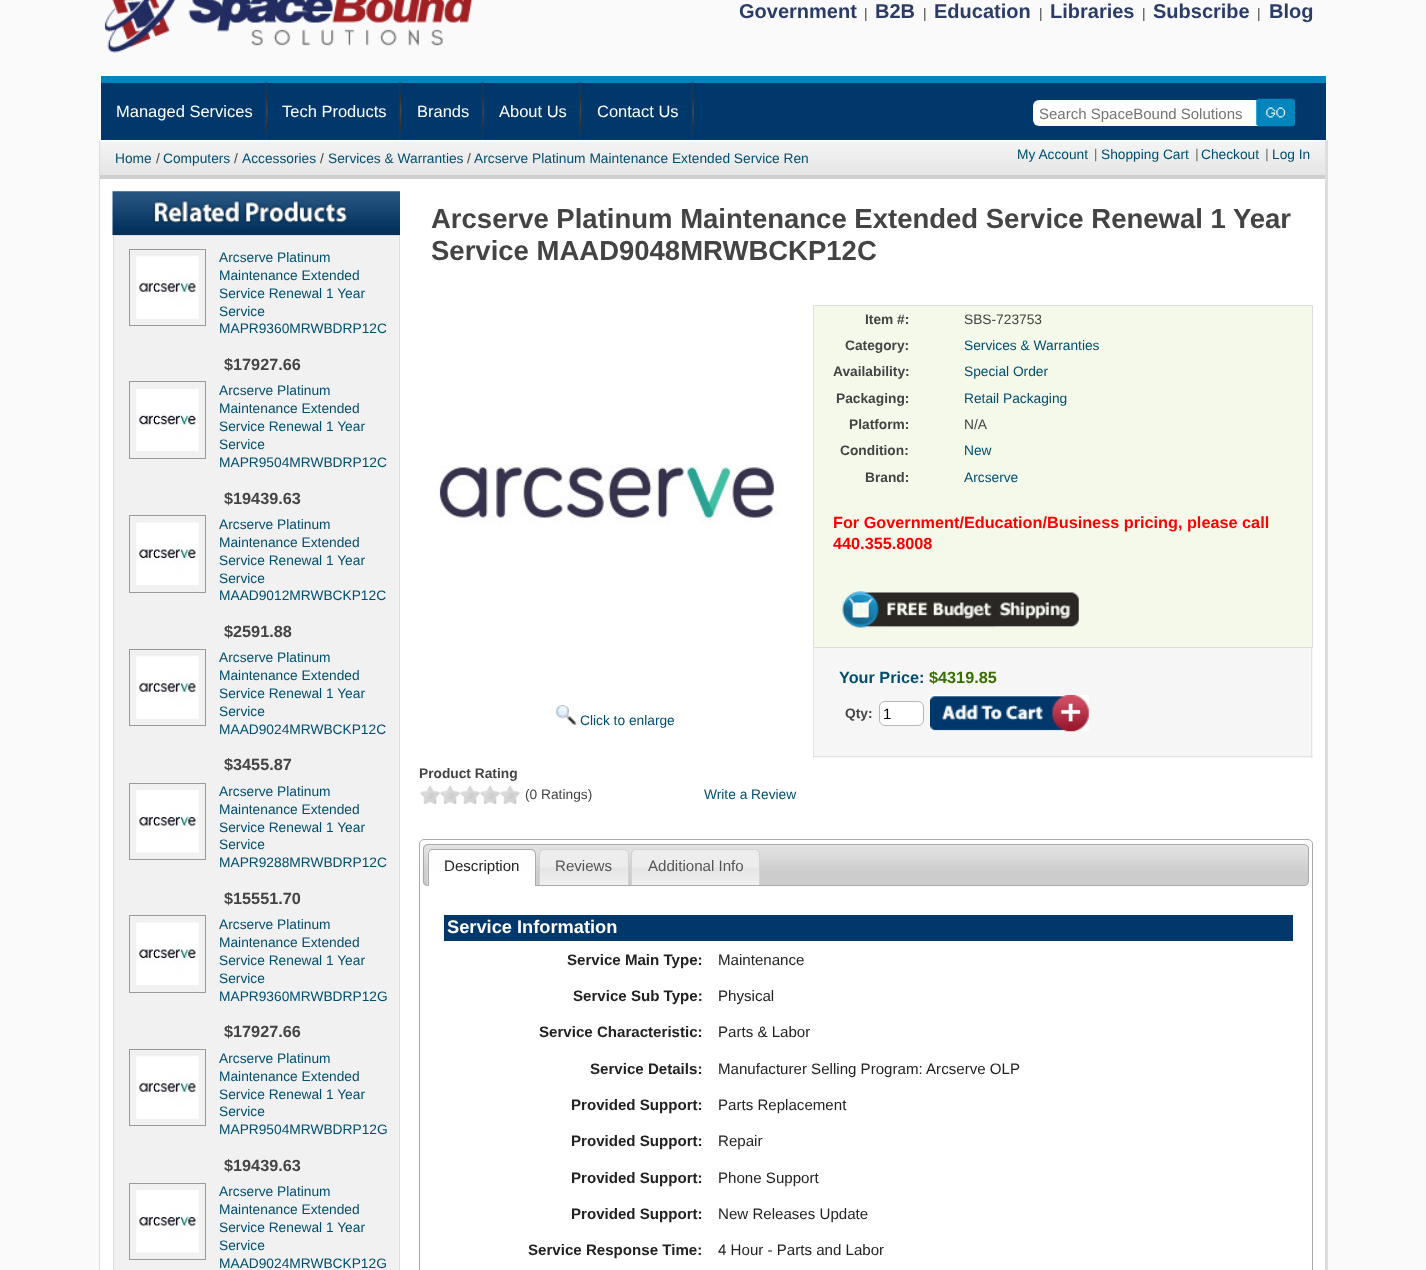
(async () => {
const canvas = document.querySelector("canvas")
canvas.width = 1426
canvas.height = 1270
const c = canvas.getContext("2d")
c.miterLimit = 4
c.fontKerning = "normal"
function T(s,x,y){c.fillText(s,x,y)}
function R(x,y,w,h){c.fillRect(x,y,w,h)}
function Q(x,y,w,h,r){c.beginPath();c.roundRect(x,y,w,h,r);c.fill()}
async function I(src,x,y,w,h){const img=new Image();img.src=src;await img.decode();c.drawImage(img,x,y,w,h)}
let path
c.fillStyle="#fafafa"
R(0,0,1426,1270)
await I("1.png",104,0,369,53)
c.font="bold 20px Liberation Sans"
c.fillStyle="#2b3c67"
T("Government",739,18)
c.font="13.75px Liberation Sans"
c.fillStyle="#444"
T("|",864,18)
c.font="bold 20px Liberation Sans"
c.fillStyle="#2b3c67"
T("B2B",875,18)
c.font="13.75px Liberation Sans"
c.fillStyle="#444"
T("|",923,18)
c.font="bold 20px Liberation Sans"
c.fillStyle="#2b3c67"
T("Education",934,18)
c.font="13.75px Liberation Sans"
c.fillStyle="#444"
T("|",1039,18)
c.font="bold 20px Liberation Sans"
c.fillStyle="#2b3c67"
T("Libraries",1050,18)
c.font="13.75px Liberation Sans"
c.fillStyle="#444"
T("|",1142,18)
c.font="bold 20px Liberation Sans"
c.fillStyle="#2b3c67"
T("Subscribe",1153,18)
c.font="13.75px Liberation Sans"
c.fillStyle="#444"
T("|",1257,18)
c.font="bold 20px Liberation Sans"
c.fillStyle="#2b3c67"
T("Blog",1269,18)
c.fillStyle="#00386b"
R(101,83,1225,57)
c.fillStyle="#0085bc"
R(101,76,1225,7)
await I("2.png",265,82,3,58)
c.font="16.5px Liberation Sans"
c.fillStyle="#fff"
T("Managed Services",116,117)
await I("3.png",398,82,4,58)
T("Tech Products",282,117)
await I("4.png",481,82,3,58)
T("Brands",417,117)
await I("3.png",578,82,4,58)
T("About Us",499,117)
await I("4.png",691,82,3,58)
T("Contact Us",597,117)
Q(1033,100,231,26,6)
c.font="15px Liberation Sans"
c.fillStyle="#757575"
T("Search SpaceBound Solutions",1039,119)
await I("5.png",1256,98,39,29)
c.fillStyle="#fff"
R(100,140,1225,1130)
c.fillStyle="#ddd"
R(1325,140,3,1130)
R(99,140,1,1130)
await I("6.png",100,141,1225,34)
c.fillStyle="#cfcfcf"
R(100,175,1225,4)
c.font="13.75px Liberation Sans"
c.fillStyle="#004e6f"
T("Home",115,163)
c.fillStyle="#444"
T("/",156,163)
c.fillStyle="#004e6f"
T("Computers",163,163)
c.fillStyle="#444"
T("/",234,163)
c.fillStyle="#004e6f"
T("Accessories",242,163)
c.fillStyle="#444"
T("/",320,163)
c.fillStyle="#004e6f"
T("Services & Warranties",328,163)
c.fillStyle="#444"
T("/",467,163)
c.fillStyle="#004e6f"
T("Arcserve Platinum Maintenance Extended Service Ren",474,163)
T("My Account",1017,159)
await I("7.png",1095,148,2,14)
T("Shopping Cart",1101,159)
await I("8.png",1196,148,2,14)
T("Checkout",1201,159)
await I("8.png",1266,148,2,14)
T("Log In",1272,159)
await I("9.png",112,191,288,44)
c.fillStyle="#f1f1f1"
R(114,236,284,1034)
c.fillStyle="#f6f6f6"
R(398,235,1,1035)
c.strokeStyle="#ddd"
c.strokeRect(113.5,235.5,286,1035)
c.strokeStyle="#999"
c.strokeRect(129.5,249.5,76,76)
await I("10.png",136,256,63,63)
c.fillStyle="#004e6f"
T("Arcserve Platinum",219,262)
T("Maintenance Extended",219,280)
T("Service Renewal 1 Year",219,298)
T("Service",219,316)
T("MAPR9360MRWBDRP12C",219,333)
c.font="bold 16.25px Liberation Sans"
c.fillStyle="#444"
T("$17927.66",224,370)
c.strokeRect(129.5,381.5,76,77)
await I("11.png",136,389,63,62)
c.font="13.75px Liberation Sans"
c.fillStyle="#004e6f"
T("Arcserve Platinum",219,395)
T("Maintenance Extended",219,413)
T("Service Renewal 1 Year",219,431)
T("Service",219,449)
T("MAPR9504MRWBDRP12C",219,467)
c.font="bold 16.25px Liberation Sans"
c.fillStyle="#444"
T("$19439.63",224,504)
c.strokeRect(129.5,515.5,76,77)
await I("12.png",136,522,63,63)
c.font="13.75px Liberation Sans"
c.fillStyle="#004e6f"
T("Arcserve Platinum",219,529)
T("Maintenance Extended",219,547)
T("Service Renewal 1 Year",219,565)
T("Service",219,583)
T("MAAD9012MRWBCKP12C",219,600)
c.font="bold 16.25px Liberation Sans"
c.fillStyle="#444"
T("$2591.88",224,637)
c.strokeRect(129.5,649.5,76,76)
await I("10.png",136,656,63,63)
c.font="13.75px Liberation Sans"
c.fillStyle="#004e6f"
T("Arcserve Platinum",219,662)
T("Maintenance Extended",219,680)
T("Service Renewal 1 Year",219,698)
T("Service",219,716)
T("MAAD9024MRWBCKP12C",219,734)
c.font="bold 16.25px Liberation Sans"
c.fillStyle="#444"
T("$3455.87",224,770)
c.strokeRect(129.5,783.5,76,76)
await I("13.png",136,790,63,63)
c.font="13.75px Liberation Sans"
c.fillStyle="#004e6f"
T("Arcserve Platinum",219,796)
T("Maintenance Extended",219,814)
T("Service Renewal 1 Year",219,832)
T("Service",219,849)
T("MAPR9288MRWBDRP12C",219,867)
c.font="bold 16.25px Liberation Sans"
c.fillStyle="#444"
T("$15551.70",224,904)
c.strokeRect(129.5,915.5,76,77)
await I("12.png",136,922,63,63)
c.font="13.75px Liberation Sans"
c.fillStyle="#004e6f"
T("Arcserve Platinum",219,929)
T("Maintenance Extended",219,947)
T("Service Renewal 1 Year",219,965)
T("Service",219,983)
T("MAPR9360MRWBDRP12G",219,1001)
c.font="bold 16.25px Liberation Sans"
c.fillStyle="#444"
T("$17927.66",224,1037)
c.strokeRect(129.5,1049.5,76,76)
await I("10.png",136,1056,63,63)
c.font="13.75px Liberation Sans"
c.fillStyle="#004e6f"
T("Arcserve Platinum",219,1063)
T("Maintenance Extended",219,1081)
T("Service Renewal 1 Year",219,1099)
T("Service",219,1116)
T("MAPR9504MRWBDRP12G",219,1134)
c.font="bold 16.25px Liberation Sans"
c.fillStyle="#444"
T("$19439.63",224,1171)
c.strokeRect(129.5,1183.5,76,76)
await I("14.png",136,1190,63,63)
c.font="13.75px Liberation Sans"
c.fillStyle="#004e6f"
T("Arcserve Platinum",219,1196)
T("Maintenance Extended",219,1214)
T("Service Renewal 1 Year",219,1232)
T("Service",219,1250)
T("MAAD9024MRWBCKP12G",219,1268)
c.font="bold 27.5px Liberation Sans"
c.fillStyle="#444"
T("Arcserve Platinum Maintenance Extended Service Renewal 1 Year",431,228)
T("Service MAAD9048MRWBCKP12C",431,260)
await I("15.png",439,465,341,60)
c.fillStyle="#f4f9ea"
c.beginPath()
c.rect(813.5,305.5,499,342)
c.fill()
c.strokeStyle="#ddd"
c.stroke()
c.font="bold 13.75px Liberation Sans"
c.fillStyle="#444"
T("Item #:",865,324)
T("Category:",845,350)
T("Availability:",833,376)
T("Packaging:",836,403)
T("Platform:",849,429)
T("Condition:",840,455)
T("Brand:",865,482)
c.font="13.75px Liberation Sans"
T("SBS-723753",964,324)
c.fillStyle="#004e6f"
T("Services & Warranties",964,350)
T("Special Order",964,376)
T("Retail Packaging",964,403)
c.fillStyle="#444"
T("N/A",964,429)
c.fillStyle="#004e6f"
T("New",964,455)
T("Arcserve",964,482)
c.font="bold 16.25px Liberation Sans"
c.fillStyle="#f00"
T("For Government/Education/Business pricing, please call",833,528)
T("440.355.8008",833,549)
await I("16.png",842,591,237,37)
c.fillStyle="#f6f6f6"
R(814,648,499,110)
c.fillStyle="#e4e4e4"
R(1311,648,1,110)
R(813,756,500,1)
R(813,648,1,110)
c.fillStyle="#004e6f"
T("Your Price:",839,683)
c.fillStyle="#396f00"
T("$4319.85",929,683)
c.font="bold 13.75px Liberation Sans"
c.fillStyle="#444"
T("Qty:",845,718)
c.fillStyle="#fff"
c.beginPath()
c.roundRect(879.5,701.5,44,24,5.5)
c.fill()
c.strokeStyle="#b6b6b6"
c.stroke()
c.font="15px Liberation Sans"
c.fillStyle="#000"
T("1",883,719)
await I("17.png",930,695,159,37)
await I("18.png",556,705,21,20)
c.font="13.75px Liberation Sans"
c.fillStyle="#004e6f"
T("Click to enlarge",580,725)
c.font="bold 13.75px Liberation Sans"
c.fillStyle="#444"
T("Product Rating",419,778)
await I("19.png",420,785,100,19)
c.font="13.75px Liberation Sans"
T("(0 Ratings)",525,799)
c.fillStyle="#004e6f"
T("Write a Review",704,799)
c.beginPath()
c.roundRect(419.5,839.5,893,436,4.5)
c.strokeStyle="#aaa"
c.stroke()
await I("20.png",422,844,887,42)
c.beginPath()
c.roundRect(423.5,844.5,885,41,4.5)
c.stroke()
await I("21.png",427,849,110,37)
c.fillStyle="#aaa"
path = new Path2D("M432 849h99c3 0 5 2 5 5v32h-108v-32c0-3 2-5 4-5zm0 1h99c2 0 4 2 4 4v32h-106v-32c0-2 1-4 3-4z")
c.fill(path,"evenodd")
c.font="15.1px Liberation Sans"
c.fillStyle="#222"
T("Description",444,871)
await I("22.png",539,849,90,36)
c.fillStyle="#d3d3d3"
path = new Path2D("M544 849h80c3 0 5 2 5 5v31h-90v-31c0-3 2-5 5-5zm0 1h80c2 0 4 2 4 4v31h-88v-31c0-2 2-4 4-4z")
c.fill(path,"evenodd")
c.fillStyle="#555"
T("Reviews",555,871)
await I("23.png",631,849,129,36)
c.fillStyle="#d3d3d3"
path = new Path2D("M636 849h119c3 0 5 2 5 5v31h-129v-31c0-3 2-5 5-5zm0 1h119c2 0 4 2 4 4v31h-127v-31c0-2 2-4 4-4z")
c.fill(path,"evenodd")
c.fillStyle="#555"
T("Additional Info",648,871)
c.fillStyle="#00386b"
R(444,915,849,26)
c.font="bold 18.25px Liberation Sans"
c.fillStyle="#fff"
T("Service Information",447,933)
c.font="bold 15.1px Liberation Sans"
c.fillStyle="#222"
T("Service Main Type:",567,965)
c.font="15.1px Liberation Sans"
T("Maintenance",718,965)
c.font="bold 15.1px Liberation Sans"
T("Service Sub Type:",573,1001)
c.font="15.1px Liberation Sans"
T("Physical",718,1001)
c.font="bold 15.1px Liberation Sans"
T("Service Characteristic:",539,1037)
c.font="15.1px Liberation Sans"
T("Parts & Labor",718,1037)
c.font="bold 15.1px Liberation Sans"
T("Service Details:",590,1074)
c.font="15.1px Liberation Sans"
T("Manufacturer Selling Program: Arcserve OLP",718,1074)
c.font="bold 15.1px Liberation Sans"
T("Provided Support:",571,1110)
c.font="15.1px Liberation Sans"
T("Parts Replacement",718,1110)
c.font="bold 15.1px Liberation Sans"
T("Provided Support:",571,1146)
c.font="15.1px Liberation Sans"
T("Repair",718,1146)
c.font="bold 15.1px Liberation Sans"
T("Provided Support:",571,1183)
c.font="15.1px Liberation Sans"
T("Phone Support",718,1183)
c.font="bold 15.1px Liberation Sans"
T("Provided Support:",571,1219)
c.font="15.1px Liberation Sans"
T("New Releases Update",718,1219)
c.font="bold 15.1px Liberation Sans"
T("Service Response Time:",528,1255)
c.font="15.1px Liberation Sans"
T("4 Hour - Parts and Labor",718,1255)
})()
